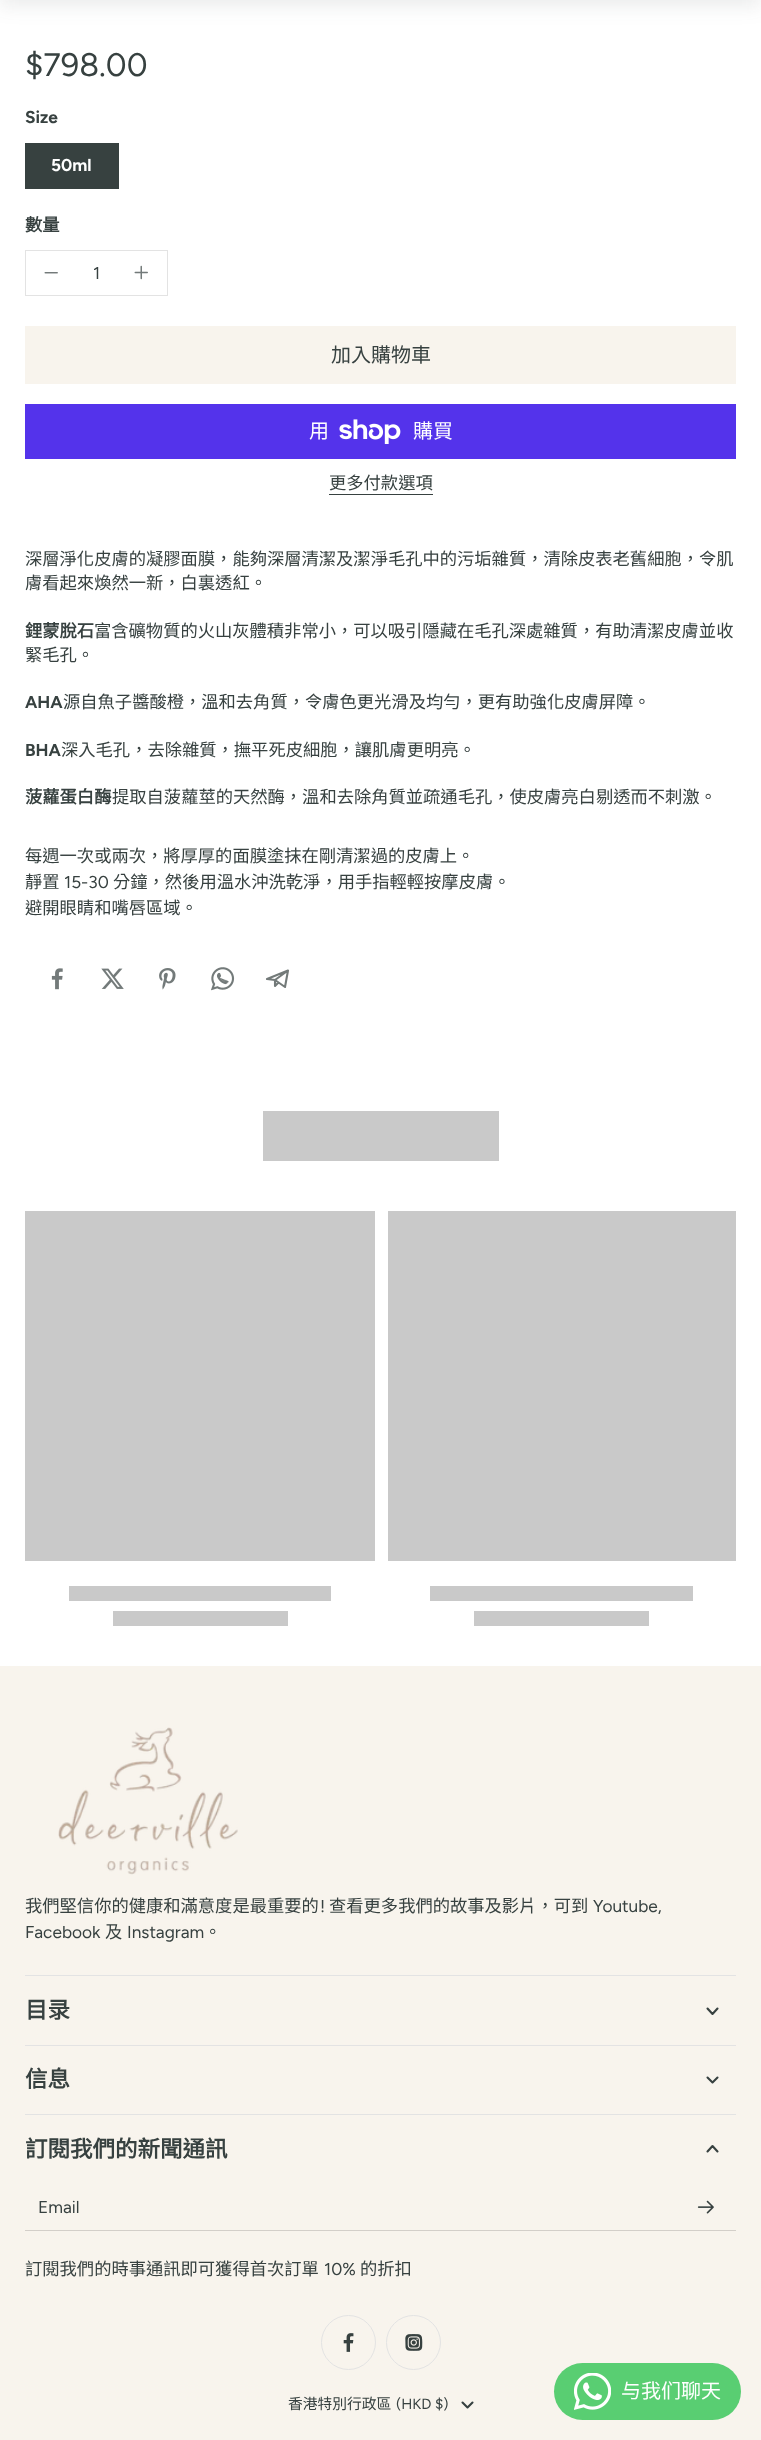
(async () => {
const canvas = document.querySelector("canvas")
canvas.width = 761
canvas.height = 2440
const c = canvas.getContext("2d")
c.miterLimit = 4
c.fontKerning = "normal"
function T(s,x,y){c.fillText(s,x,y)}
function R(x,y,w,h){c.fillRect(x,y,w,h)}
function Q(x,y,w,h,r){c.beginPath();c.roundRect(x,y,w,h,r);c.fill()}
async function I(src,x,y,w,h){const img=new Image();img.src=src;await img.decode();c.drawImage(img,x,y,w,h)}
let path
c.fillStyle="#fff"
R(0,0,761,2440)
c.fillStyle="#3741401a"
c.filter="blur(9.5px)"
c.beginPath()
c.rect(0,-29,761,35)
c.fill()
c.filter="none"
c.font="32.5px Figtree"
c.fillStyle="#374140"
T("$798.00",25,76)
c.font="bold 17.3px Figtree"
T("Size",25,123)
R(25,143,94,46)
c.fillStyle="#fff"
T("50ml",51,171)
c.font="bold 17.3px Noto Sans CJK TC"
c.fillStyle="#374140"
T("數量",25,231)
c.strokeStyle="#e3e3e3"
c.strokeRect(25.5,250.5,142,45)
await I("1.png",44,272,14,2)
c.font="17.3px Figtree"
T("1",93,279)
await I("2.png",134,265,14,15)
c.fillStyle="#f8f4ed"
R(25,326,711,58)
c.font="20px Noto Sans CJK TC"
c.fillStyle="#374140"
T("加入購物車",331,362)
c.fillStyle="#5433eb"
R(25,404,711,55)
c.fillStyle="#fff"
T("用",309,438)
await I("3.png",339,419,62,25)
T("購買",413,438)
c.font="17.3px Noto Sans CJK TC"
c.fillStyle="#374140"
T("更多付款選項",329,489)
R(329,494,104,1)
T("深層淨化皮膚的凝膠面膜，能夠深層清潔及潔淨毛孔中的污垢雜質，清除皮表老舊細胞，令肌",25,565)
T("膚看起來煥然一新，白裏透紅。",25,589)
c.font="bold 17.3px Noto Sans CJK TC"
T("鋰蒙脫石",25,637)
c.font="17.3px Noto Sans CJK TC"
T("富含礦物質的火山灰體積非常小，可以吸引隱藏在毛孔深處雜質，有助清潔皮膚並收",94,637)
T("緊毛孔。",25,661)
c.font="bold 17.3px Figtree"
T("AHA",25,708)
c.font="17.3px Noto Sans CJK TC"
T("源自魚子醬酸橙，溫和去角質，令膚色更光滑及均勻，更有助強化皮膚屏障。",63,708)
c.font="bold 17.3px Figtree"
T("BHA",25,756)
c.font="17.3px Noto Sans CJK TC"
T("深入毛孔，去除雜質，撫平死皮細胞，讓肌膚更明亮。",61,756)
c.font="bold 17.3px Noto Sans CJK TC"
T("菠蘿蛋白酶",25,803)
c.font="17.3px Noto Sans CJK TC"
T("提取自菠蘿莖的天然酶，溫和去除角質並疏通毛孔，使皮膚亮白剔透而不刺激。",112,803)
T("每週一次或兩次，將厚厚的面膜塗抹在剛清潔過的皮膚上。",25,862)
T("靜置",25,888)
c.font="17.3px Figtree"
T("15-30",64,888)
c.font="17.3px Noto Sans CJK TC"
T("分鐘，然後用溫水沖洗乾淨，用手指輕輕按摩皮膚。",113,888)
T("避開眼睛和嘴唇區域。",25,914)
await I("4.png",51,968,12,22)
await I("5.png",101,968,23,21)
await I("6.png",159,968,17,22)
await I("7.png",211,967,24,24)
path = new Path2D("M288 970.5l-21 8.5l8 1m13-9.5l-3 16.5l-10-7m13-9.5l-13 9.5m0 0v6l3.5-3.5")
c.strokeStyle="#737a79"
c.lineWidth=2.1
c.lineCap="round"
c.lineJoin="round"
c.stroke(path)
c.fillStyle="#c9c9c9"
R(263,1111,236,50)
R(25,1211,350,350)
R(69,1586,262,15)
R(113,1611,175,15)
R(388,1211,348,350)
R(430,1586,263,15)
R(474,1611,175,15)
c.fillStyle="#f8f4ed"
R(0,1666,761,774)
c.fillStyle="#e3e3e3"
R(25,1975,711,1)
await I("8.png",58,1727,180,148)
c.fillStyle="#374140"
T("我們堅信你的健康和滿意度是最重要的",25,1912)
c.font="17.3px Figtree"
T("!",320,1912)
c.font="17.3px Noto Sans CJK TC"
T("查看更多我們的故事及影片，可到",329,1912)
c.font="17.3px Figtree"
T("Youtube,",593,1912)
T("Facebook",25,1938)
c.font="17.3px Noto Sans CJK TC"
T("及",105,1938)
c.font="17.3px Figtree"
T("Instagram",127,1938)
c.font="17.3px Noto Sans CJK TC"
T("。",204,1938)
c.fillStyle="#e3e3e3"
R(25,2045,711,1)
c.font="bold 22.5px Noto Sans CJK TC"
c.fillStyle="#374140"
T("目录",25,2018)
path = new Path2D("M707.5 2008.5l5 5.5l5-5.5")
c.strokeStyle="#374140"
c.stroke(path)
c.fillStyle="#e3e3e3"
R(25,2114,711,1)
c.fillStyle="#374140"
T("信息",25,2087)
path = new Path2D("M707.5 2077.5l5 5l5-5")
c.stroke(path)
T("訂閱我們的新聞通訊",25,2157)
path = new Path2D("M717.5 2151.5l-5-5.5l-5 5.5")
c.stroke(path)
c.fillStyle="#d3cfc9"
R(25,2230,711,1)
await I("9.png",697,2200,17,14)
c.font="17.3px Figtree"
c.fillStyle="#374140"
T("Email",38,2213)
c.font="17.3px Noto Sans CJK TC"
T("訂閱我們的時事通訊即可獲得首次訂單",25,2275)
c.font="17.3px Figtree"
T("10%",324,2275)
c.font="17.3px Noto Sans CJK TC"
T("的折扣",360,2275)
c.beginPath()
c.arc(348.5,2342.5,27,0,7)
c.strokeStyle="#e3e3e3"
c.lineWidth=1
c.stroke()
await I("10.png",343,2333,11,19)
c.beginPath()
c.arc(413.5,2342.5,27,0,7)
c.stroke()
await I("11.png",405,2334,18,17)
c.font="14.75px Noto Sans CJK TC"
T("香港特別行政區",288,2409)
c.font="14.75px Figtree"
T("(HKD $)",396,2409)
path = new Path2D("M462.5 2402.5l5 5l5-5")
c.strokeStyle="#374140"
c.lineWidth=2.1
c.stroke(path)
c.fillStyle="#59ce72"
Q(554,2363,187,57,28.5)
await I("12.png",574,2373,37,37)
c.font="20px Noto Sans CJK TC"
c.fillStyle="#fff"
T("与我们聊天",621,2398)
})()
